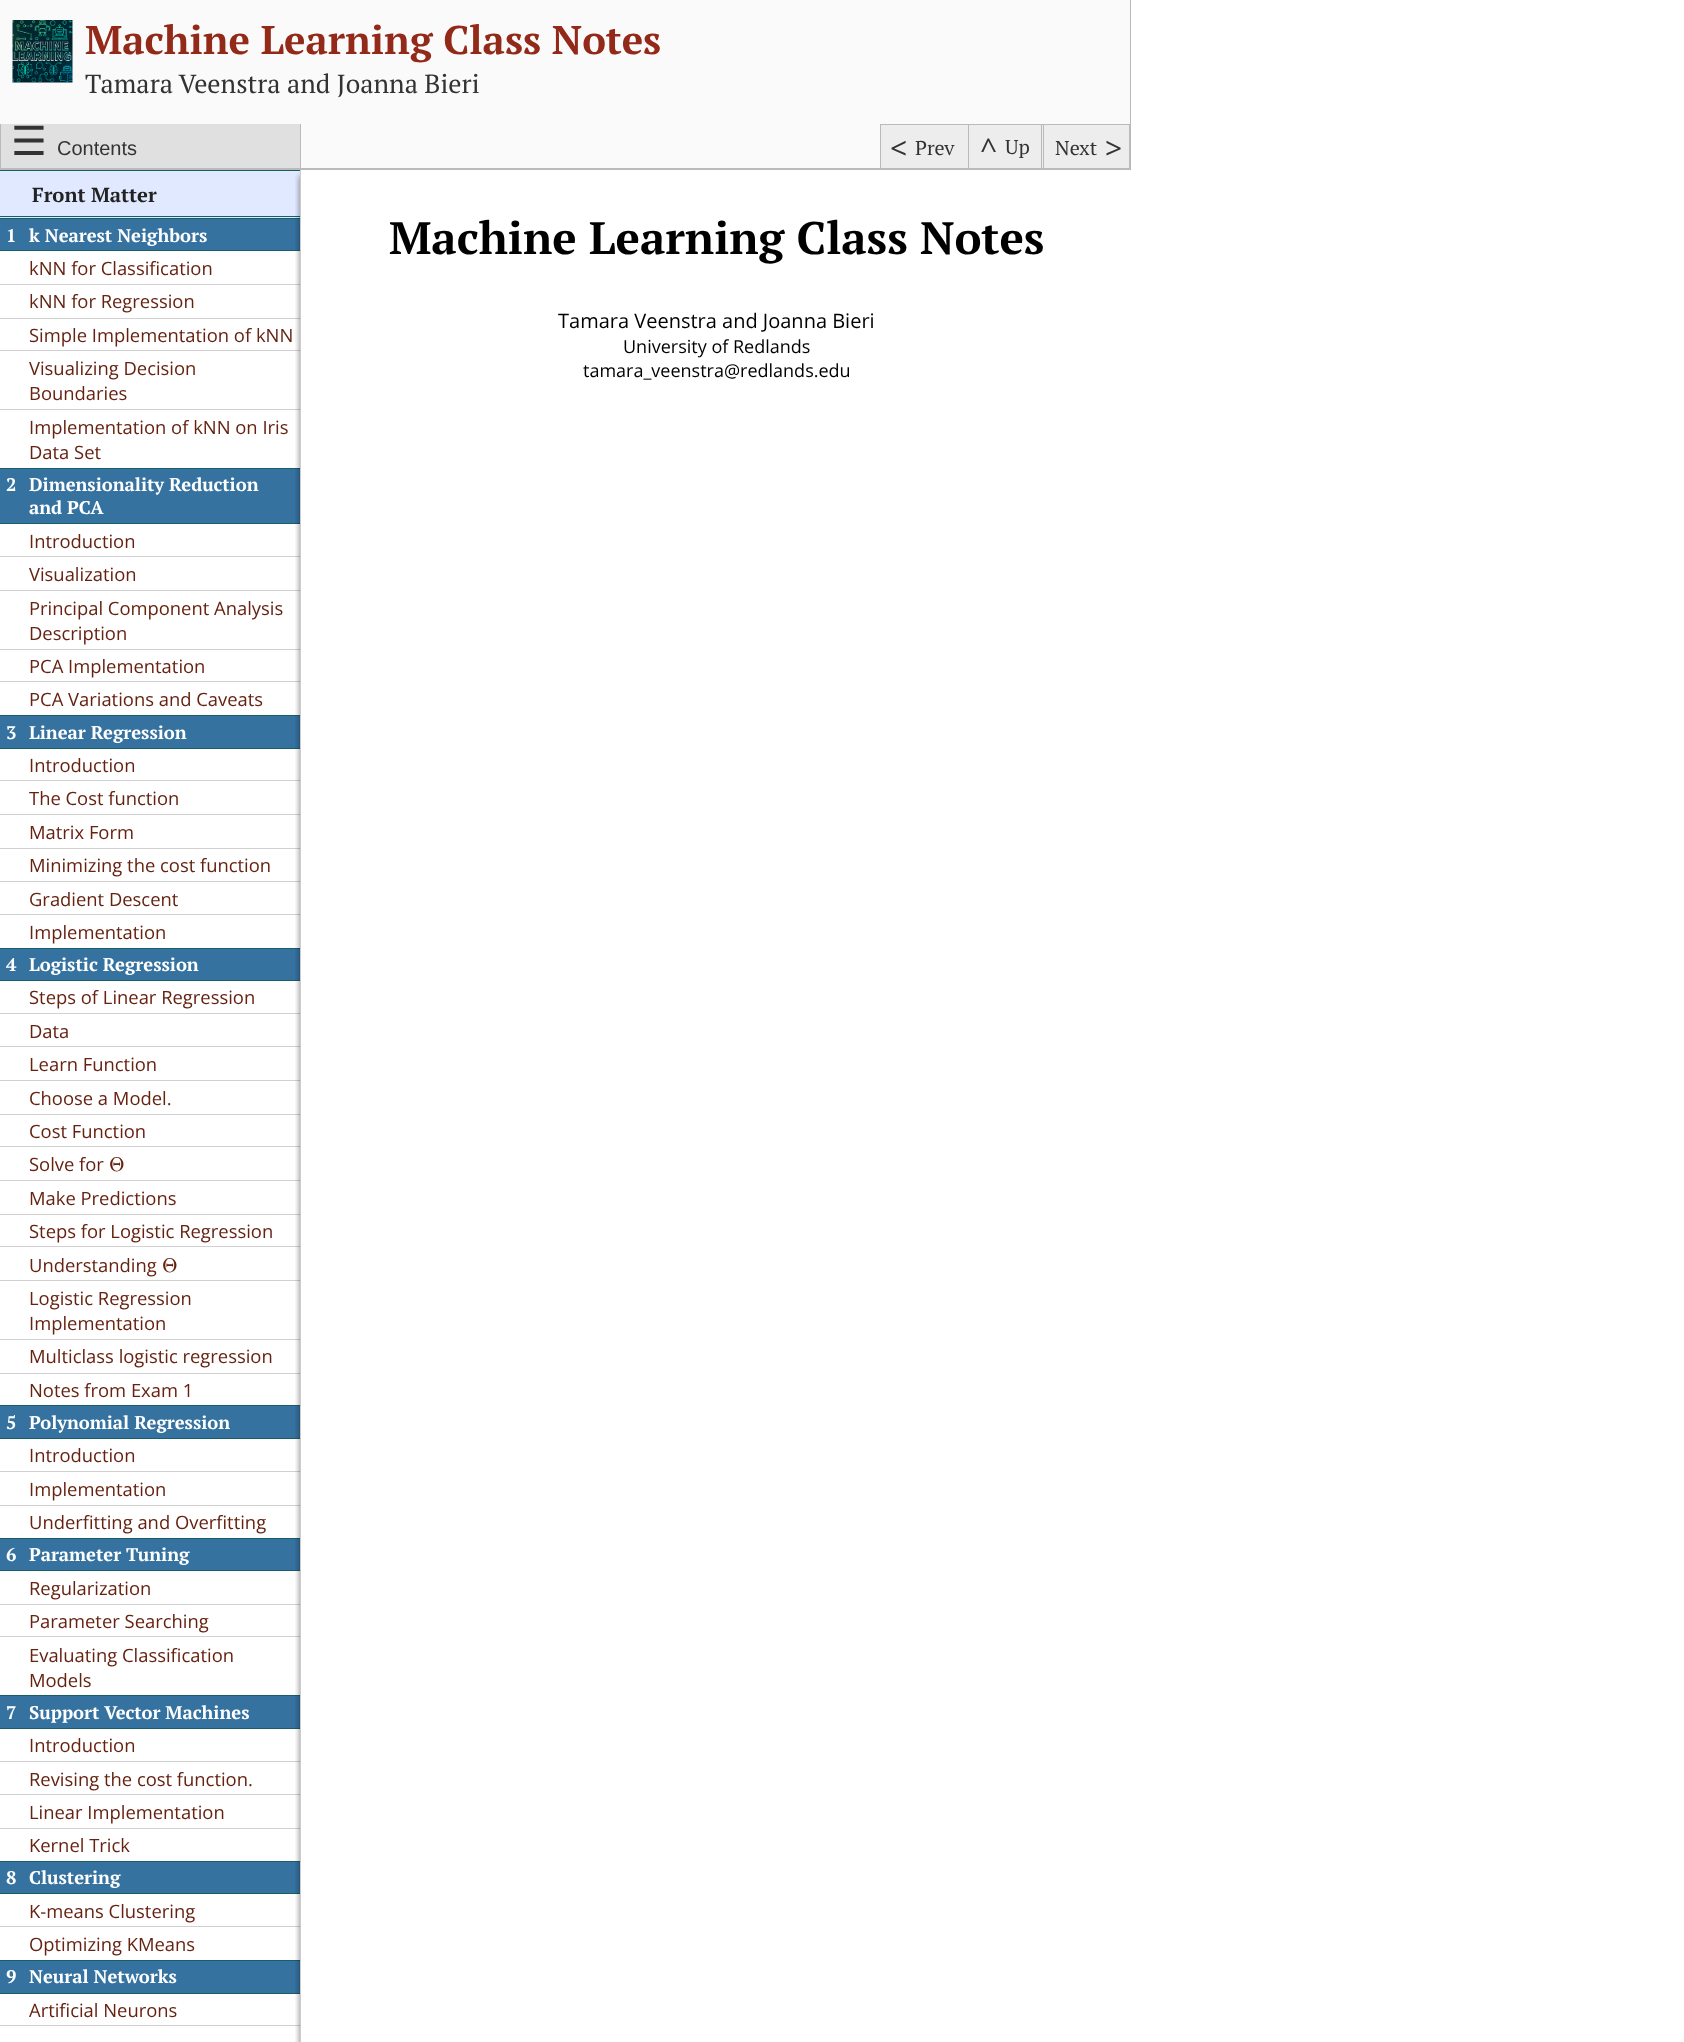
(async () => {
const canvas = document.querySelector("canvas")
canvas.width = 1684
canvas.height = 2042
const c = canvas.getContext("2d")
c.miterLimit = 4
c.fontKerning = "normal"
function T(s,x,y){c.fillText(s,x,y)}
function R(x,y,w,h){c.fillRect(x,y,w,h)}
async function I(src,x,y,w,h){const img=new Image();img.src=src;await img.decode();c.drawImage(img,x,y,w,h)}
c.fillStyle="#fff"
R(0,0,1684,2042)
c.fillStyle="#fafafa"
R(0,0,1130,124)
c.fillStyle="#bababa"
R(1130,0,1,170)
await I("1.png",12,20,61,63)
c.font="bold 40px PT Serif"
c.fillStyle="#932919"
T("Machine Learning Class Notes",85,54)
c.font="26.25px PT Serif"
c.fillStyle="#333"
T("Tamara Veenstra and Joanna Bieri",85,93)
c.fillStyle="#bababa"
R(0,168,1130,2)
c.fillStyle="#e0e0e0"
R(1,124,299,44)
c.fillStyle="#bababa"
R(0,124,1,44)
c.font="40px DejaVu Sans"
c.fillStyle="#333"
T("☰",11,155)
c.font="20px Liberation Sans"
T("Contents",57,155)
c.fillStyle="#fafafa"
R(301,124,579,44)
c.fillStyle="#bababa"
R(300,124,1,44)
c.fillStyle="#ededed"
R(881,125,87,43)
c.fillStyle="#bababa"
R(880,124,250,1)
R(880,124,1,44)
c.font="30px Open Sans"
c.fillStyle="#333"
T("<",890,159)
c.font="20px PT Serif"
T("Prev",915,155)
c.fillStyle="#ededed"
R(969,125,74,43)
c.fillStyle="#bababa"
R(1041,124,1,44)
R(968,124,1,44)
c.font="30px Open Sans"
c.fillStyle="#333"
T("^",980,160)
c.font="20px PT Serif"
T("Up",1005,154)
c.fillStyle="#ededed"
R(1044,125,85,43)
c.fillStyle="#bababa"
R(1129,124,1,44)
R(1043,124,1,44)
c.fillStyle="#333"
T("Next",1055,155)
c.font="30px Open Sans"
T(">",1105,159)
c.fillStyle="#e0e9ff"
R(0,171,300,47)
c.fillStyle="#185f65"
R(0,170,300,1)
R(0,216,300,1)
c.font="bold 20.25px PT Serif"
c.fillStyle="#222"
T("Front Matter",32,202)
c.fillStyle="#3572a0"
R(0,219,300,31)
c.fillStyle="#185f65"
R(0,218,300,1)
R(0,250,300,1)
c.font="bold 18.4px PT Serif"
c.fillStyle="#fff"
T("1",6,242)
T("k Nearest Neighbors",29,242)
c.fillStyle="#d1d1d1"
R(0,284,300,1)
c.font="18.4px Open Sans"
c.fillStyle="#621"
T("kNN for Classification",29,275)
c.fillStyle="#d1d1d1"
R(0,318,300,1)
c.fillStyle="#621"
T("kNN for Regression",29,308)
c.fillStyle="#d1d1d1"
R(0,350,300,1)
c.fillStyle="#621"
T("Simple Implementation of kNN",29,342)
c.fillStyle="#d1d1d1"
R(0,409,300,1)
c.fillStyle="#621"
T("Visualizing Decision",29,375)
T("Boundaries",29,400)
T("Implementation of kNN on Iris",29,434)
T("Data Set",29,459)
c.fillStyle="#3572a0"
R(0,469,300,54)
c.fillStyle="#185f65"
R(0,468,300,1)
R(0,523,300,1)
c.font="bold 18.4px PT Serif"
c.fillStyle="#fff"
T("2",6,491)
T("Dimensionality Reduction",29,491)
T("and PCA",29,514)
c.fillStyle="#d1d1d1"
R(0,556,300,1)
c.font="18.4px Open Sans"
c.fillStyle="#621"
T("Introduction",29,548)
c.fillStyle="#d1d1d1"
R(0,590,300,1)
c.fillStyle="#621"
T("Visualization",29,581)
c.fillStyle="#d1d1d1"
R(0,649,300,1)
c.fillStyle="#621"
T("Principal Component Analysis",29,615)
T("Description",29,640)
c.fillStyle="#d1d1d1"
R(0,681,300,1)
c.fillStyle="#621"
T("PCA Implementation",29,673)
T("PCA Variations and Caveats",29,706)
c.fillStyle="#3572a0"
R(0,716,300,32)
c.fillStyle="#185f65"
R(0,715,300,1)
R(0,748,300,1)
c.font="bold 18.4px PT Serif"
c.fillStyle="#fff"
T("3",6,739)
T("Linear Regression",29,739)
c.fillStyle="#d1d1d1"
R(0,780,300,1)
c.font="18.4px Open Sans"
c.fillStyle="#621"
T("Introduction",29,772)
c.fillStyle="#d1d1d1"
R(0,814,300,1)
c.fillStyle="#621"
T("The Cost function",29,805)
c.fillStyle="#d1d1d1"
R(0,848,300,1)
c.fillStyle="#621"
T("Matrix Form",29,839)
c.fillStyle="#d1d1d1"
R(0,881,300,1)
c.fillStyle="#621"
T("Minimizing the cost function",29,872)
c.fillStyle="#d1d1d1"
R(0,914,300,1)
c.fillStyle="#621"
T("Gradient Descent",29,906)
T("Implementation",29,939)
c.fillStyle="#3572a0"
R(0,949,300,31)
c.fillStyle="#185f65"
R(0,948,300,1)
R(0,980,300,1)
c.font="bold 18.4px PT Serif"
c.fillStyle="#fff"
T("4",6,971)
T("Logistic Regression",29,971)
c.fillStyle="#d1d1d1"
R(0,1013,300,1)
c.font="18.4px Open Sans"
c.fillStyle="#621"
T("Steps of Linear Regression",29,1004)
c.fillStyle="#d1d1d1"
R(0,1046,300,1)
c.fillStyle="#621"
T("Data",29,1038)
c.fillStyle="#d1d1d1"
R(0,1080,300,1)
c.fillStyle="#621"
T("Learn Function",29,1071)
c.fillStyle="#d1d1d1"
R(0,1114,300,1)
c.fillStyle="#621"
T("Choose a Model.",29,1105)
c.fillStyle="#d1d1d1"
R(0,1146,300,1)
c.fillStyle="#621"
T("Cost Function",29,1138)
c.fillStyle="#d1d1d1"
R(0,1180,300,1)
c.fillStyle="#621"
T("Solve for",29,1171)
c.font="20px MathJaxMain"
T("Θ",109,1171)
c.fillStyle="#d1d1d1"
R(0,1214,300,1)
c.font="18.4px Open Sans"
c.fillStyle="#621"
T("Make Predictions",29,1205)
c.fillStyle="#d1d1d1"
R(0,1246,300,1)
c.fillStyle="#621"
T("Steps for Logistic Regression",29,1238)
c.fillStyle="#d1d1d1"
R(0,1280,300,1)
c.fillStyle="#621"
T("Understanding",29,1272)
c.font="20px MathJaxMain"
T("Θ",162,1272)
c.fillStyle="#d1d1d1"
R(0,1339,300,1)
c.font="18.4px Open Sans"
c.fillStyle="#621"
T("Logistic Regression",29,1305)
T("Implementation",29,1330)
c.fillStyle="#d1d1d1"
R(0,1373,300,1)
c.fillStyle="#621"
T("Multiclass logistic regression",29,1363)
T("Notes from Exam 1",29,1397)
c.fillStyle="#3572a0"
R(0,1406,300,32)
c.fillStyle="#185f65"
R(0,1405,300,1)
R(0,1438,300,1)
c.font="bold 18.4px PT Serif"
c.fillStyle="#fff"
T("5",6,1429)
T("Polynomial Regression",29,1429)
c.fillStyle="#d1d1d1"
R(0,1471,300,1)
c.font="18.4px Open Sans"
c.fillStyle="#621"
T("Introduction",29,1462)
c.fillStyle="#d1d1d1"
R(0,1505,300,1)
c.fillStyle="#621"
T("Implementation",29,1496)
T("Underfitting and Overfitting",29,1529)
c.fillStyle="#3572a0"
R(0,1539,300,31)
c.fillStyle="#185f65"
R(0,1538,300,1)
R(0,1570,300,1)
c.font="bold 18.4px PT Serif"
c.fillStyle="#fff"
T("6",6,1561)
T("Parameter Tuning",29,1561)
c.fillStyle="#d1d1d1"
R(0,1604,300,1)
c.font="18.4px Open Sans"
c.fillStyle="#621"
T("Regularization",29,1595)
c.fillStyle="#d1d1d1"
R(0,1636,300,1)
c.fillStyle="#621"
T("Parameter Searching",29,1628)
T("Evaluating Classification",29,1662)
T("Models",29,1687)
c.fillStyle="#3572a0"
R(0,1696,300,32)
c.fillStyle="#185f65"
R(0,1695,300,1)
R(0,1728,300,1)
c.font="bold 18.4px PT Serif"
c.fillStyle="#fff"
T("7",6,1719)
T("Support Vector Machines",29,1719)
c.fillStyle="#d1d1d1"
R(0,1761,300,1)
c.font="18.4px Open Sans"
c.fillStyle="#621"
T("Introduction",29,1752)
c.fillStyle="#d1d1d1"
R(0,1794,300,1)
c.fillStyle="#621"
T("Revising the cost function.",29,1786)
c.fillStyle="#d1d1d1"
R(0,1828,300,1)
c.fillStyle="#621"
T("Linear Implementation",29,1819)
T("Kernel Trick",29,1852)
c.fillStyle="#3572a0"
R(0,1862,300,31)
c.fillStyle="#185f65"
R(0,1861,300,1)
R(0,1893,300,1)
c.font="bold 18.4px PT Serif"
c.fillStyle="#fff"
T("8",6,1884)
T("Clustering",29,1884)
c.fillStyle="#d1d1d1"
R(0,1926,300,1)
c.font="18.4px Open Sans"
c.fillStyle="#621"
T("K-means Clustering",29,1918)
T("Optimizing KMeans",29,1951)
c.fillStyle="#3572a0"
R(0,1961,300,32)
c.fillStyle="#185f65"
R(0,1960,300,1)
R(0,1993,300,1)
c.font="bold 18.4px PT Serif"
c.fillStyle="#fff"
T("9",6,1983)
T("Neural Networks",29,1983)
c.fillStyle="#d1d1d1"
R(0,2025,300,1)
c.font="18.4px Open Sans"
c.fillStyle="#621"
T("Artificial Neurons",29,2017)
c.save()
c.beginPath()
c.rect(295,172,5,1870)
c.clip()
c.fillStyle="#00000080"
c.filter="blur(3px)"
c.beginPath()
c.rect(300,176,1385,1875)
c.fill()
c.filter="none"
c.restore()
c.fillStyle="#ccc"
R(300,170,1,1872)
c.font="bold 45.5px PT Serif"
c.fillStyle="#000"
T("Machine Learning Class Notes",389,254)
c.font="20px Open Sans"
T("Tamara Veenstra and Joanna Bieri",558,328)
c.font="18px Open Sans"
T("University of Redlands",623,353)
T("tamara_veenstra@redlands.edu",583,377)
})()
